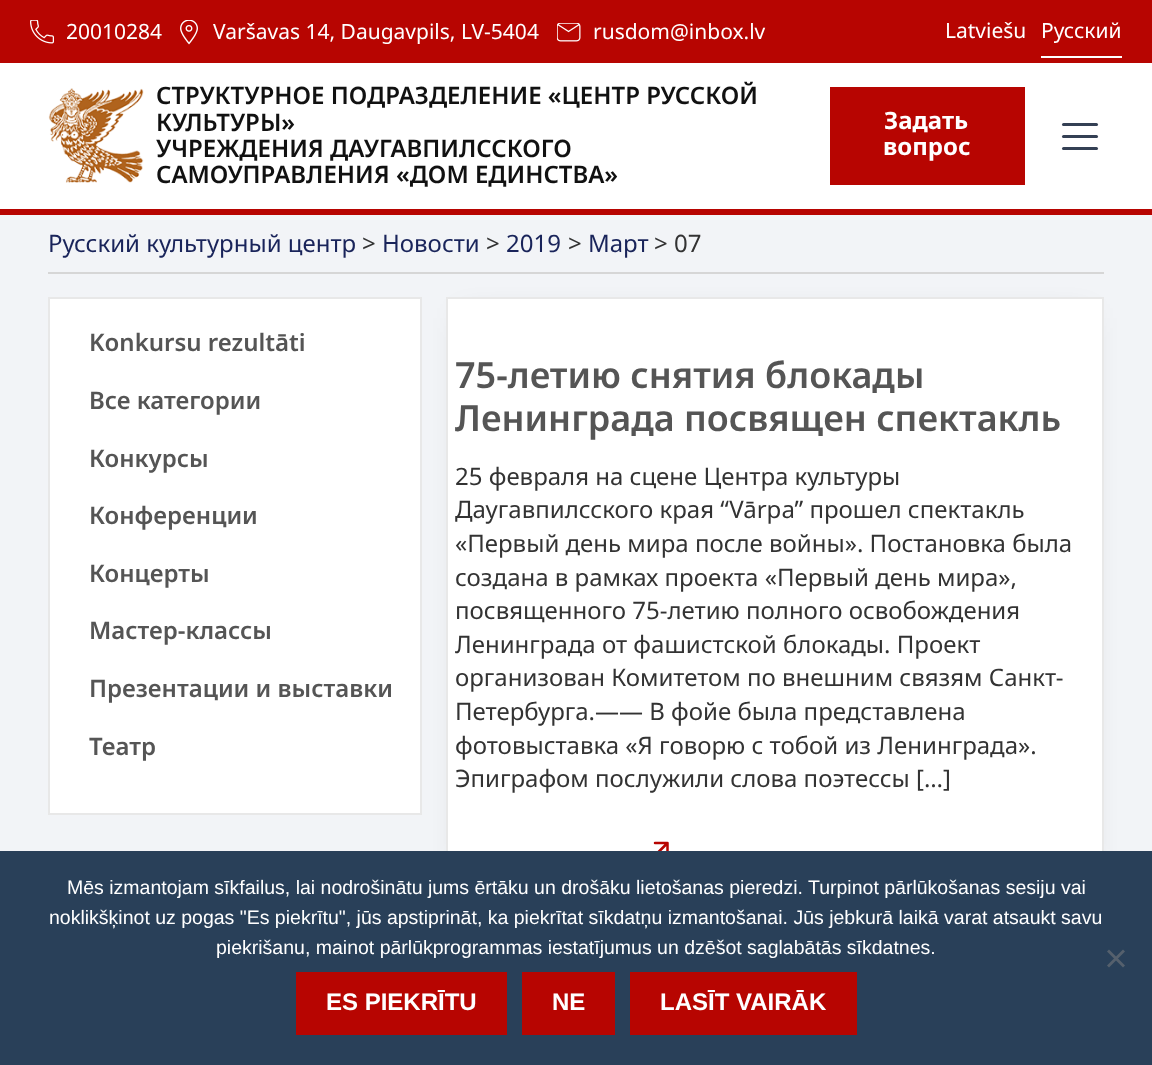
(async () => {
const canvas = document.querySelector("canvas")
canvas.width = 1152
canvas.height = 1065
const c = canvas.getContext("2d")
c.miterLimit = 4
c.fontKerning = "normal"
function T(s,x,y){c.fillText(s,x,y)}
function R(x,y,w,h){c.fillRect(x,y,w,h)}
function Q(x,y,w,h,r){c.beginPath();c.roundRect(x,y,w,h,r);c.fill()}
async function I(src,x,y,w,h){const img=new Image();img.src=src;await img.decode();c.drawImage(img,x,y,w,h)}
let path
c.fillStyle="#f2f4f7"
R(0,0,1152,1065)
c.fillStyle="#fff"
R(0,63,1152,146)
c.fillStyle="#b70501"
R(0,0,1152,63)
await I("1.png",30,20,24,24)
c.font="21px Noto Sans"
c.fillStyle="#fff"
T("20010284",66,39)
await I("2.png",180,20,18,25)
T("Varšavas 14, Daugavpils, LV-5404",213,39)
await I("3.png",557,23,24,19)
T("rusdom@inbox.lv",593,39)
T("Latviešu",945,38)
R(1041,56,81,2)
T("Русский",1041,38)
c.fillStyle="#b70501"
R(0,209,1152,6)
await I("4.png",48,88,96,95)
c.font="600 24px Noto Sans"
c.fillStyle="#111"
T("СТРУКТУРНОЕ ПОДРАЗДЕЛЕНИЕ «ЦЕНТР РУССКОЙ",156,104)
T("КУЛЬТУРЫ»",156,131)
T("УЧРЕЖДЕНИЯ ДАУГАВПИЛССКОГО",156,157)
T("САМОУПРАВЛЕНИЯ «ДОМ ЕДИНСТВА»",156,183)
c.fillStyle="#b70501"
R(830,87,195,98)
c.font="bold 24px Noto Sans"
c.fillStyle="#fff"
T("Задать",884,129)
T("вопрос",883,155)
c.fillStyle="#344054"
Q(1062,123,36,3,1.5)
Q(1062,135,36,3,1.5)
Q(1062,147,36,3,1.5)
c.fillStyle="#d6d6d6"
R(48,272,1056,2)
c.font="24px Noto Sans"
c.fillStyle="#19245a"
T("Русский культурный центр",48,252)
c.fillStyle="#333"
T(">",362,252)
c.fillStyle="#19245a"
T("Новости",382,252)
c.fillStyle="#333"
T(">",486,252)
c.fillStyle="#19245a"
T("2019",506,252)
c.fillStyle="#333"
T(">",568,252)
c.fillStyle="#19245a"
T("Март",588,252)
c.fillStyle="#333"
T("> 07",654,252)
c.fillStyle="#fff"
c.beginPath()
c.rect(49,298,372,516)
c.fill()
c.strokeStyle="#e8e8e8"
c.lineWidth=2
c.stroke()
c.font="600 24px Noto Sans"
c.fillStyle="#555"
T("Konkursu rezultāti",89,351)
T("Все категории",89,409)
T("Конкурсы",89,467)
T("Конференции",89,524)
T("Концерты",89,582)
T("Мастер-классы",89,639)
T("Презентации и выставки",89,697)
T("Театр",89,755)
c.fillStyle="#00000033"
c.filter="blur(15px)"
c.beginPath()
c.rect(464,318,622,545)
c.fill()
c.filter="none"
c.fillStyle="#fff"
R(448,299,654,552)
c.strokeRect(447,298,656,579)
c.font="600 36px Noto Sans"
c.fillStyle="#555"
T("75-летию снятия блокады",455,388)
T("Ленинграда посвящен спектакль",455,431)
c.font="24px Noto Sans"
c.fillStyle="#333"
T("25 февраля на сцене Центра культуры",455,485)
T("Даугавпилсского края “Vārpa” прошел спектакль",455,518)
T("«Первый день мира после войны». Постановка была",455,552)
T("создана в рамках проекта «Первый день мира»,",455,586)
T("посвященного 75-летию полного освобождения",455,619)
T("Ленинграда от фашистской блокады. Проект",455,653)
T("организован Комитетом по внешним связям Санкт-",455,686)
T("Петербурга.—— В фойе была представлена",455,720)
T("фотовыставка «Я говорю с тобой из Ленинграда».",455,754)
T("Эпиграфом послужили слова поэтессы […]",455,787)
path = new Path2D("M655 855.5l12.5-12.5m0 0h-12.5m12.5 0v12.5")
c.strokeStyle="#b70501"
c.lineWidth=2.5
c.lineCap="round"
c.lineJoin="round"
c.stroke(path)
c.fillStyle="#294059"
R(0,851,1152,214)
c.font="19.5px Liberation Sans"
c.fillStyle="#fff"
T("Mēs izmantojam sīkfailus, lai nodrošinātu jums ērtāku un drošāku lietošanas pieredzi. Turpinot pārlūkošanas sesiju vai",67,894)
T("noklikšķinot uz pogas \"Es piekrītu\", jūs apstiprināt, ka piekrītat sīkdatņu izmantošanai. Jūs jebkurā laikā varat atsaukt savu",49,924)
T("piekrišanu, mainot pārlūkprogrammas iestatījumus un dzēšot saglabātās sīkdatnes.",216,954)
c.fillStyle="#55606d"
path = new Path2D("M1123 949.5l2 2l-16 16l-2-2z")
c.fill(path)
path = new Path2D("M1107 951.5l2-2l16 16l-2 2z")
c.fill(path)
c.fillStyle="#b70501"
R(296,972,211,63)
c.font="bold 24px Liberation Sans"
c.fillStyle="#fff"
T("ES PIEKRĪTU",326,1010)
c.fillStyle="#b70501"
R(522,972,93,63)
c.fillStyle="#fff"
T("NE",552,1010)
c.fillStyle="#b70501"
R(630,972,227,63)
c.fillStyle="#fff"
T("LASĪT VAIRĀK",660,1010)
})()
